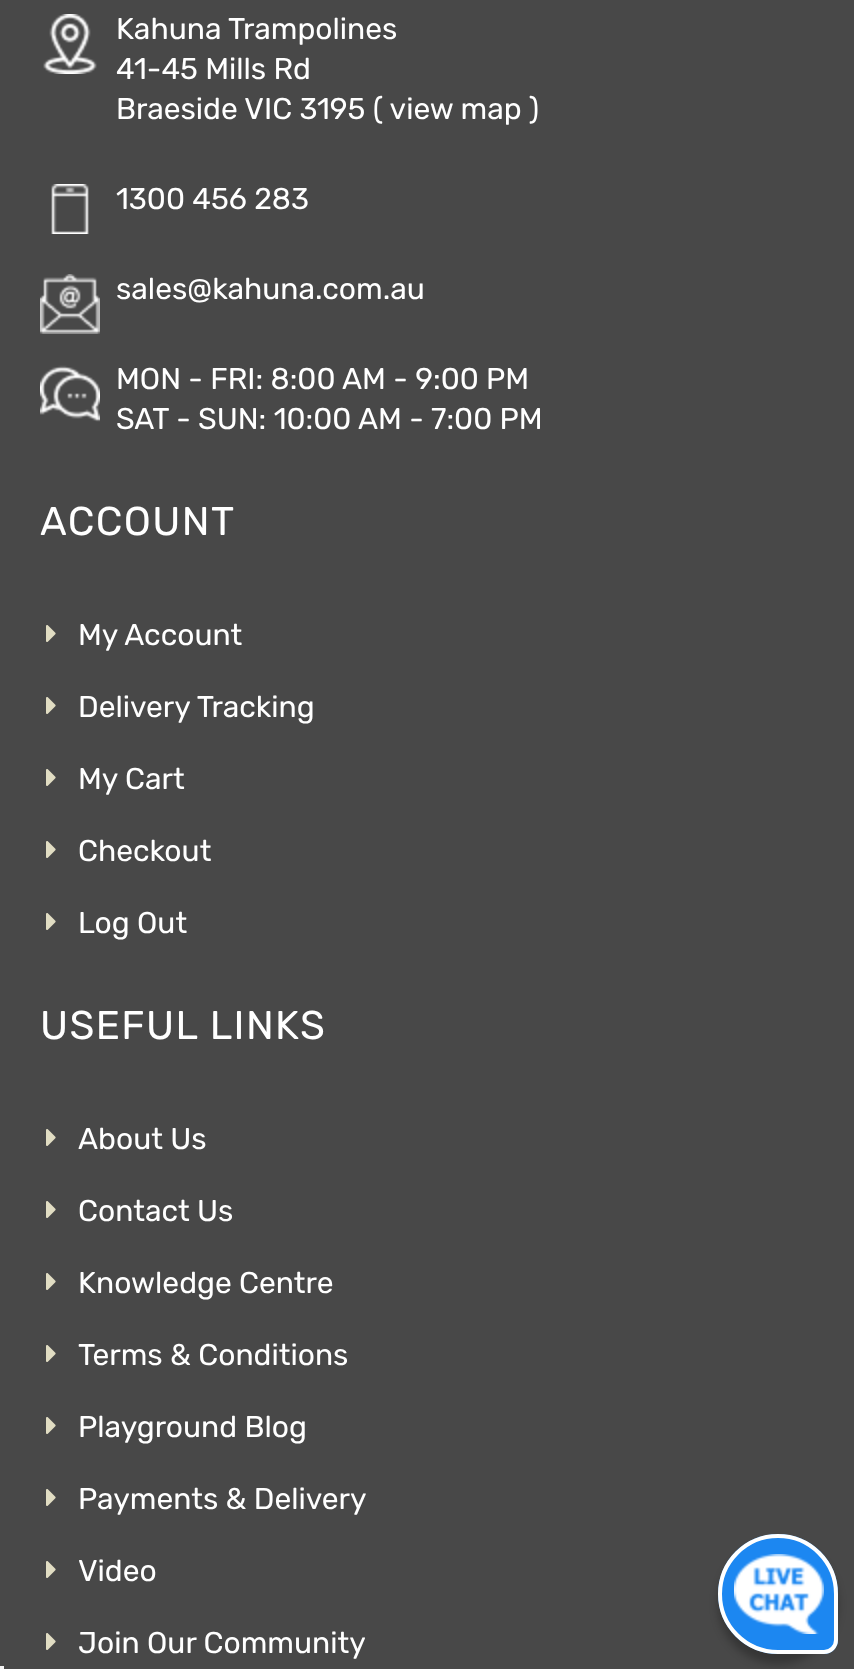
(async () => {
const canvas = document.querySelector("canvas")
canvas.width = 854
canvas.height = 1669
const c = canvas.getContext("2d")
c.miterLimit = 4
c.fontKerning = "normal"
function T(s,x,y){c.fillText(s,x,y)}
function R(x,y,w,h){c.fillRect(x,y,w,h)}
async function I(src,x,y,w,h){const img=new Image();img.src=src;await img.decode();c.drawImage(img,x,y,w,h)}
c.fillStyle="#484848"
R(0,0,854,1669)
c.fillStyle="#f5f5f5"
R(0,1666,4,3)
await I("1.png",43,14,54,60)
c.font="30px Rubik"
c.fillStyle="#fff"
T("Kahuna Trampolines",116,39)
T("41-45 Mills Rd",116,79)
T("Braeside VIC 3195 ( view map )",116,119)
await I("2.png",51,184,38,50)
T("1300 456 283",116,209)
await I("3.png",40,274,60,60)
T("sales@kahuna.com.au",116,299)
await I("4.png",40,365,60,57)
T("MON - FRI: 8:00 AM - 9:00 PM",116,389)
T("SAT - SUN: 10:00 AM - 7:00 PM",116,429)
c.letterSpacing="1.4px"
c.font="40px Rubik"
T("ACCOUNT",40,535)
await I("5.png",46,625,10,17)
c.letterSpacing="0px"
c.font="30px Rubik"
T("My Account",78,645)
await I("5.png",46,697,10,17)
T("Delivery Tracking",78,717)
await I("5.png",46,769,10,17)
T("My Cart",78,789)
await I("5.png",46,841,10,17)
T("Checkout",78,861)
await I("5.png",46,913,10,17)
T("Log Out",78,933)
c.letterSpacing="1.4px"
c.font="40px Rubik"
T("USEFUL LINKS",40,1039)
await I("5.png",46,1129,10,17)
c.letterSpacing="0px"
c.font="30px Rubik"
T("About Us",78,1149)
await I("5.png",46,1201,10,17)
T("Contact Us",78,1221)
await I("5.png",46,1273,10,17)
T("Knowledge Centre",78,1293)
await I("5.png",46,1345,10,17)
T("Terms & Conditions",78,1365)
await I("5.png",46,1417,10,17)
T("Playground Blog",78,1437)
await I("5.png",46,1489,10,17)
T("Payments & Delivery",78,1509)
await I("5.png",46,1561,10,17)
T("Video",78,1581)
await I("5.png",46,1633,10,17)
T("Join Our Community",78,1653)
c.fillStyle="#00000042"
c.filter="blur(4px)"
c.beginPath()
c.roundRect(718,1544,120,120,60)
c.fill()
c.filter="none"
c.fillStyle="#1c87f1"
c.beginPath()
c.roundRect(718,1534,120,120,[60,60,14,60])
c.fill()
await I("6.png",734,1554,90,80)
c.beginPath()
c.roundRect(720,1536,116,116,[58,58,12,58])
c.strokeStyle="#fff"
c.lineWidth=4
c.stroke()
})()
